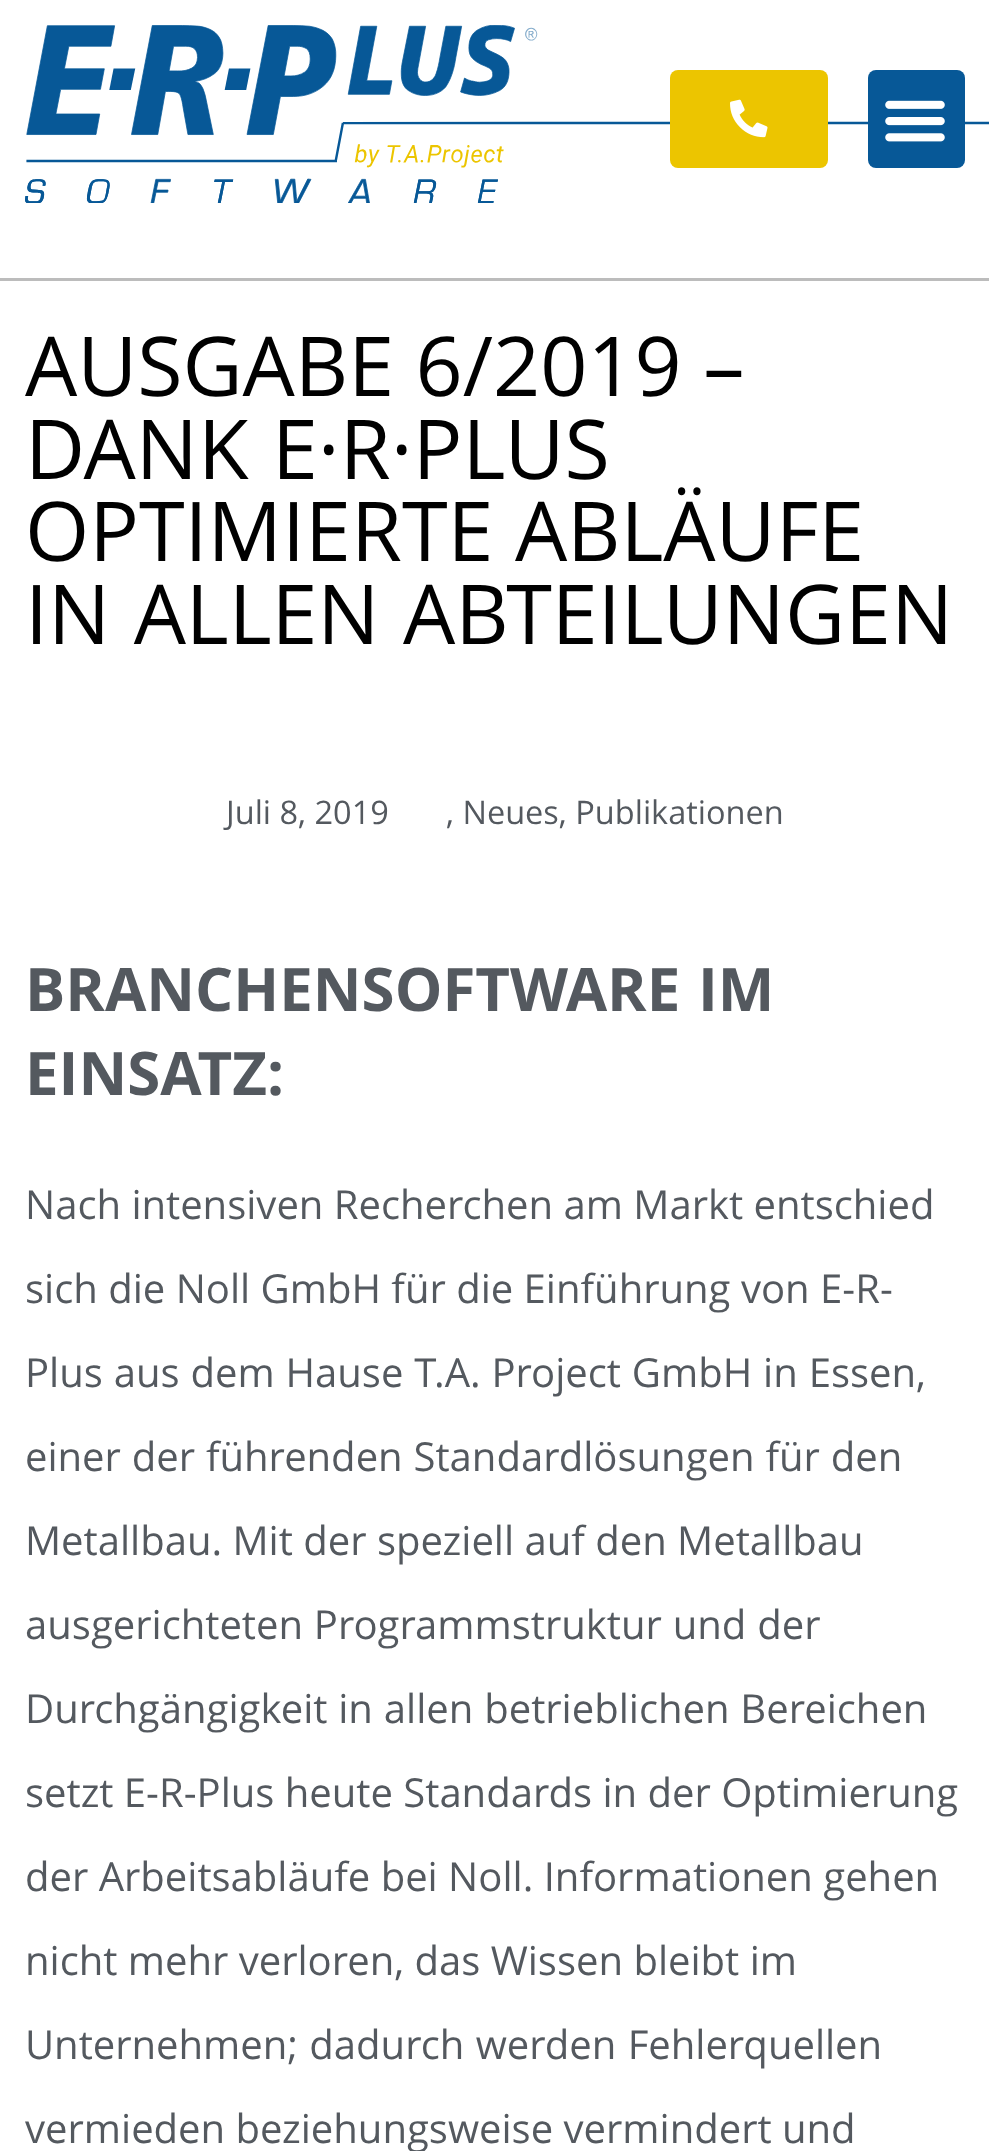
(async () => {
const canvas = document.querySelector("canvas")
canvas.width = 989
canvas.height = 2151
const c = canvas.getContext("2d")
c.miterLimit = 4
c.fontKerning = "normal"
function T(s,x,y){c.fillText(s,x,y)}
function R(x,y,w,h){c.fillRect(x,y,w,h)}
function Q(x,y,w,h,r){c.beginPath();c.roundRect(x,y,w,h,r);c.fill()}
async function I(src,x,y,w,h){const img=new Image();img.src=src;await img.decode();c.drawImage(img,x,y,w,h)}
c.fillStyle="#fff"
R(0,0,989,2151)
c.fillStyle="#7a7a7a80"
R(0,278,989,3)
await I("1.png",25,25,964,178)
c.fillStyle="#ecc500"
Q(670,70,158,98,8)
await I("2.png",730,99,38,39)
c.fillStyle="#075897"
Q(868,70,97,98,8)
await I("3.png",885,100,60,42)
c.font="82.5px Open Sans"
c.fillStyle="#000"
T("AUSGABE 6/2019 –",25,396)
c.wordSpacing="2px"
T("DANK E·R·PLUS",25,479)
c.wordSpacing="0px"
T("OPTIMIERTE ABLÄUFE",25,561)
c.wordSpacing="2px"
T("IN ALLEN ABTEILUNGEN",25,644)
c.wordSpacing="0px"
c.font="32.5px Open Sans"
c.fillStyle="#54595f"
T("Juli 8, 2019",226,824)
T(", Neues, Publikationen",446,824)
c.wordSpacing="2px"
c.font="bold 60px Open Sans"
T("BRANCHENSOFTWARE IM",25,1011)
c.wordSpacing="0px"
T("EINSATZ:",25,1095)
c.font="40px Open Sans"
T("Nach intensiven Recherchen am Markt entschied",25,1219)
T("sich die Noll GmbH für die Einführung von E-R-",25,1303)
c.wordSpacing="0.5px"
T("Plus aus dem Hause T.A. Project GmbH in Essen,",25,1387)
T("einer der führenden Standardlösungen für den",25,1471)
c.wordSpacing="0px"
T("Metallbau. Mit der speziell auf den Metallbau",25,1555)
c.wordSpacing="0.5px"
T("ausgerichteten Programmstruktur und der",25,1639)
T("Durchgängigkeit in allen betrieblichen Bereichen",25,1723)
c.wordSpacing="0px"
T("setzt E-R-Plus heute Standards in der Optimierung",25,1807)
T("der Arbeitsabläufe bei Noll. Informationen gehen",25,1891)
T("nicht mehr verloren, das Wissen bleibt im",25,1975)
c.wordSpacing="1px"
T("Unternehmen; dadurch werden Fehlerquellen",25,2059)
c.wordSpacing="0px"
T("vermieden beziehungsweise vermindert und",25,2143)
})()
